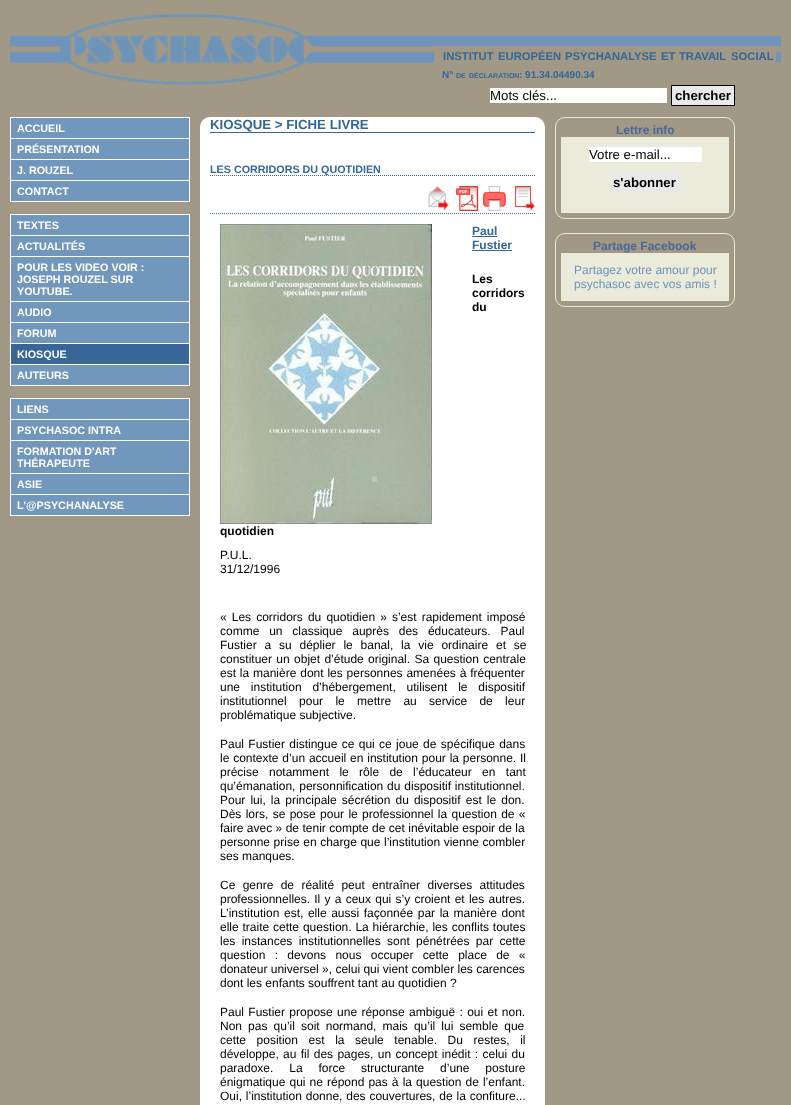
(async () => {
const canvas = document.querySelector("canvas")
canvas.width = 791
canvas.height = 1105
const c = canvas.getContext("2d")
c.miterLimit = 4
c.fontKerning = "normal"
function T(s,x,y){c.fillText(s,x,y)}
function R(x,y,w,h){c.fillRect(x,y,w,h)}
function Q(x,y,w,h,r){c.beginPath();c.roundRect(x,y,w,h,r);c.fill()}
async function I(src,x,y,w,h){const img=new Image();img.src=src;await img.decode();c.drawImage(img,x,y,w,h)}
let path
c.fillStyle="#a19985"
R(0,0,791,1105)
await I("1.png",10,35,50,28)
await I("2.png",60,13,254,72)
await I("3.png",314,35,467,28)
R(434,46,342,17)
c.font="bold 11.25px Liberation Sans"
c.fillStyle="#369"
T("INSTITUT",443,60)
T("EUROPÉEN",498,60)
T("PSYCHANALYSE",565,60)
T("ET",661,60)
T("TRAVAIL",679,60)
T("SOCIAL",731,60)
c.font="bold 10px Liberation Sans"
T("N°",442,78)
c.font="bold 7px Liberation Sans"
T("DE",456,78)
T("DÉCLARATION",469,78)
c.font="bold 10px Liberation Sans"
T(": 91.34.04490.34",519,78)
c.fillStyle="#fff"
R(490,88,177,15)
c.font="13.25px Liberation Sans"
c.fillStyle="#000"
T("Mots clés...",490,100)
c.fillStyle="#e9e9e9"
c.beginPath()
c.rect(671.5,85.5,63,20)
c.fill()
c.strokeStyle="#000"
c.stroke()
c.font="bold 13.25px Liberation Sans"
c.fillStyle="#000"
T("chercher",675,100)
c.fillStyle="#7297bc"
c.beginPath()
c.rect(10.5,117.5,179,21)
c.fill()
c.strokeStyle="#fff"
c.stroke()
c.font="bold 10.75px Liberation Sans"
c.fillStyle="#fff"
T("ACCUEIL",17,132)
c.fillStyle="#7297bc"
R(11,139,178,20)
c.fillStyle="#fff"
R(189,139,1,63)
R(10,159,180,1)
R(10,139,1,21)
T("PRÉSENTATION",17,153)
c.fillStyle="#7297bc"
R(11,160,178,20)
c.fillStyle="#fff"
R(10,180,180,1)
R(10,160,1,21)
T("J. ROUZEL",17,174)
c.fillStyle="#7297bc"
R(11,181,178,20)
c.fillStyle="#fff"
R(10,201,180,1)
R(10,181,1,21)
T("CONTACT",17,195)
c.fillStyle="#7297bc"
c.beginPath()
c.rect(10.5,214.5,179,21)
c.fill()
c.stroke()
c.fillStyle="#fff"
T("TEXTES",17,229)
c.fillStyle="#7297bc"
R(11,236,178,20)
c.fillStyle="#fff"
R(189,236,1,150)
R(10,256,180,1)
R(10,236,1,21)
T("ACTUALITÉS",17,250)
c.fillStyle="#7297bc"
R(11,257,178,44)
c.fillStyle="#fff"
R(10,301,180,1)
R(10,257,1,45)
T("POUR LES VIDEO VOIR :",17,271)
T("JOSEPH ROUZEL SUR",17,283)
T("YOUTUBE.",17,295)
c.fillStyle="#7297bc"
R(11,302,178,20)
c.fillStyle="#fff"
R(10,322,180,1)
R(10,302,1,21)
T("AUDIO",17,316)
c.fillStyle="#7297bc"
R(11,323,178,20)
c.fillStyle="#fff"
R(10,343,180,1)
R(10,323,1,21)
T("FORUM",17,337)
c.fillStyle="#396699"
R(11,344,178,20)
c.fillStyle="#fff"
R(10,364,180,1)
R(10,344,1,21)
T("KIOSQUE",17,358)
c.fillStyle="#7297bc"
R(11,365,178,20)
c.fillStyle="#fff"
R(10,385,180,1)
R(10,365,1,21)
T("AUTEURS",17,379)
c.fillStyle="#7297bc"
c.beginPath()
c.rect(10.5,398.5,179,21)
c.fill()
c.stroke()
c.fillStyle="#fff"
T("LIENS",17,413)
c.fillStyle="#7297bc"
R(11,420,178,20)
c.fillStyle="#fff"
R(189,420,1,96)
R(10,440,180,1)
R(10,420,1,21)
T("PSYCHASOC INTRA",17,434)
c.fillStyle="#7297bc"
R(11,441,178,32)
c.fillStyle="#fff"
R(10,473,180,1)
R(10,441,1,33)
T("FORMATION D'ART",17,455)
T("THÉRAPEUTE",17,467)
c.fillStyle="#7297bc"
R(11,474,178,20)
c.fillStyle="#fff"
R(10,494,180,1)
R(10,474,1,21)
T("ASIE",17,488)
c.fillStyle="#7297bc"
R(11,495,178,20)
c.fillStyle="#fff"
R(10,515,180,1)
R(10,495,1,21)
T("L'@PSYCHANALYSE",17,509)
Q(200,117,345,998,10)
c.fillStyle="#369"
R(210,132,325,1)
c.font="bold 13.25px Liberation Sans"
T("KIOSQUE > FICHE LIVRE",210,129)
path = new Path2D("M210 175.5h325")
c.strokeStyle="#369"
c.setLineDash([1,1])
c.stroke(path)
c.font="bold 10.75px Liberation Sans"
T("LES CORRIDORS DU QUOTIDIEN",210,173)
path = new Path2D("M210 213.5h325")
c.stroke(path)
await I("4.png",428,186,21,25)
await I("5.png",456,186,23,25)
await I("6.png",483,186,23,25)
await I("7.png",515,186,20,25)
await I("8.png",220,224,212,300)
c.font="bold 12px Liberation Sans"
T("Paul",472,235)
R(472,236,25,1)
T("Fustier",472,249)
R(472,250,40,1)
c.fillStyle="#000"
T("Les",472,283)
T("corridors",472,297)
T("du",472,311)
T("quotidien",220,535)
c.font="12px Liberation Sans"
T("P.U.L.",220,559)
T("31/12/1996",220,573)
c.wordSpacing="1.75px"
T("« Les corridors du quotidien » s’est rapidement imposé",220,621)
c.wordSpacing="6.5px"
T("comme un classique auprès des éducateurs. Paul",220,635)
c.wordSpacing="4.5px"
T("Fustier a su déplier le banal, la vie ordinaire et se",220,649)
c.wordSpacing="1px"
T("constituer un objet d’étude original. Sa question centrale",220,663)
c.wordSpacing="0.5px"
T("est la manière dont les personnes amenées à fréquenter",220,677)
c.wordSpacing="7.5px"
T("une institution d’hébergement, utilisent le dispositif",220,691)
c.wordSpacing="9px"
T("institutionnel pour le mettre au service de leur",220,705)
c.wordSpacing="0px"
T("problématique subjective.",220,719)
c.wordSpacing="1px"
T("Paul Fustier distingue ce qui ce joue de spécifique dans",220,748)
c.wordSpacing="0.5px"
T("le contexte d’un accueil en institution pour la personne. Il",220,762)
c.wordSpacing="7px"
T("précise notamment le rôle de l’éducateur en tant",220,776)
c.wordSpacing="0.5px"
T("qu’émanation, personnification du dispositif institutionnel.",220,790)
c.wordSpacing="1.75px"
T("Pour lui, la principale sécrétion du dispositif est le don.",220,804)
c.wordSpacing="1px"
T("Dès lors, se pose pour le professionnel la question de «",220,818)
c.wordSpacing="0.1px"
T("faire avec » de tenir compte de cet inévitable espoir de la",220,832)
c.wordSpacing="0.25px"
T("personne prise en charge que l’institution vienne combler",220,846)
c.wordSpacing="0px"
T("ses manques.",220,860)
c.wordSpacing="4px"
T("Ce genre de réalité peut entraîner diverses attitudes",220,889)
c.wordSpacing="0.9px"
T("professionnelles. Il y a ceux qui s’y croient et les autres.",220,903)
c.wordSpacing="1.25px"
T("L’institution est, elle aussi façonnée par la manière dont",220,917)
c.wordSpacing="0.5px"
T("elle traite cette question. La hiérarchie, les conflits toutes",220,931)
c.wordSpacing="3px"
T("les instances institutionnelles sont pénétrées par cette",220,945)
c.wordSpacing="6px"
T("question : devons nous occuper cette place de «",220,959)
c.wordSpacing="0px"
T("donateur universel », celui qui vient combler les carences",220,973)
T("dont les enfants souffrent tant au quotidien ?",220,987)
c.wordSpacing="1px"
T("Paul Fustier propose une réponse ambiguë : oui et non.",220,1016)
c.wordSpacing="2.75px"
T("Non pas qu’il soit normand, mais qu’il lui semble que",220,1030)
c.wordSpacing="7.25px"
T("cette position est la seule tenable. Du restes, il",220,1044)
c.wordSpacing="1px"
T("développe, au fil des pages, un concept inédit : celui du",220,1058)
c.wordSpacing="12.5px"
T("paradoxe. La force structurante d’une posture",220,1072)
c.wordSpacing="0.75px"
T("énigmatique qui ne répond pas à la question de l’enfant.",220,1086)
c.wordSpacing="0.5px"
T("Oui, l’institution donne, des couvertures, de la confiture...",220,1100)
c.beginPath()
c.roundRect(555.5,117.5,179,101,9.5)
c.strokeStyle="#eaebdb"
c.setLineDash([])
c.stroke()
c.wordSpacing="0px"
c.font="bold 12px Liberation Sans"
c.fillStyle="#4b6699"
T("Lettre info",616,134)
c.fillStyle="#eaebdb"
R(561,137,168,76)
c.fillStyle="#fff"
R(589,147,113,15)
c.font="13.25px Liberation Sans"
c.fillStyle="#000"
T("Votre e-mail...",589,159)
c.fillStyle="#e9e9e9"
R(610,172,70,21)
c.font="bold 13.25px Liberation Sans"
c.fillStyle="#000"
T("s'abonner",613,187)
c.beginPath()
c.roundRect(555.5,233.5,179,73,9.5)
c.stroke()
c.font="bold 12px Liberation Sans"
c.fillStyle="#4b6699"
T("Partage Facebook",593,250)
c.fillStyle="#eaebdb"
R(561,253,168,48)
c.font="12px Liberation Sans"
c.fillStyle="#6f94b8"
T("Partagez votre amour pour",574,274)
T("psychasoc avec vos amis !",574,288)
})()
